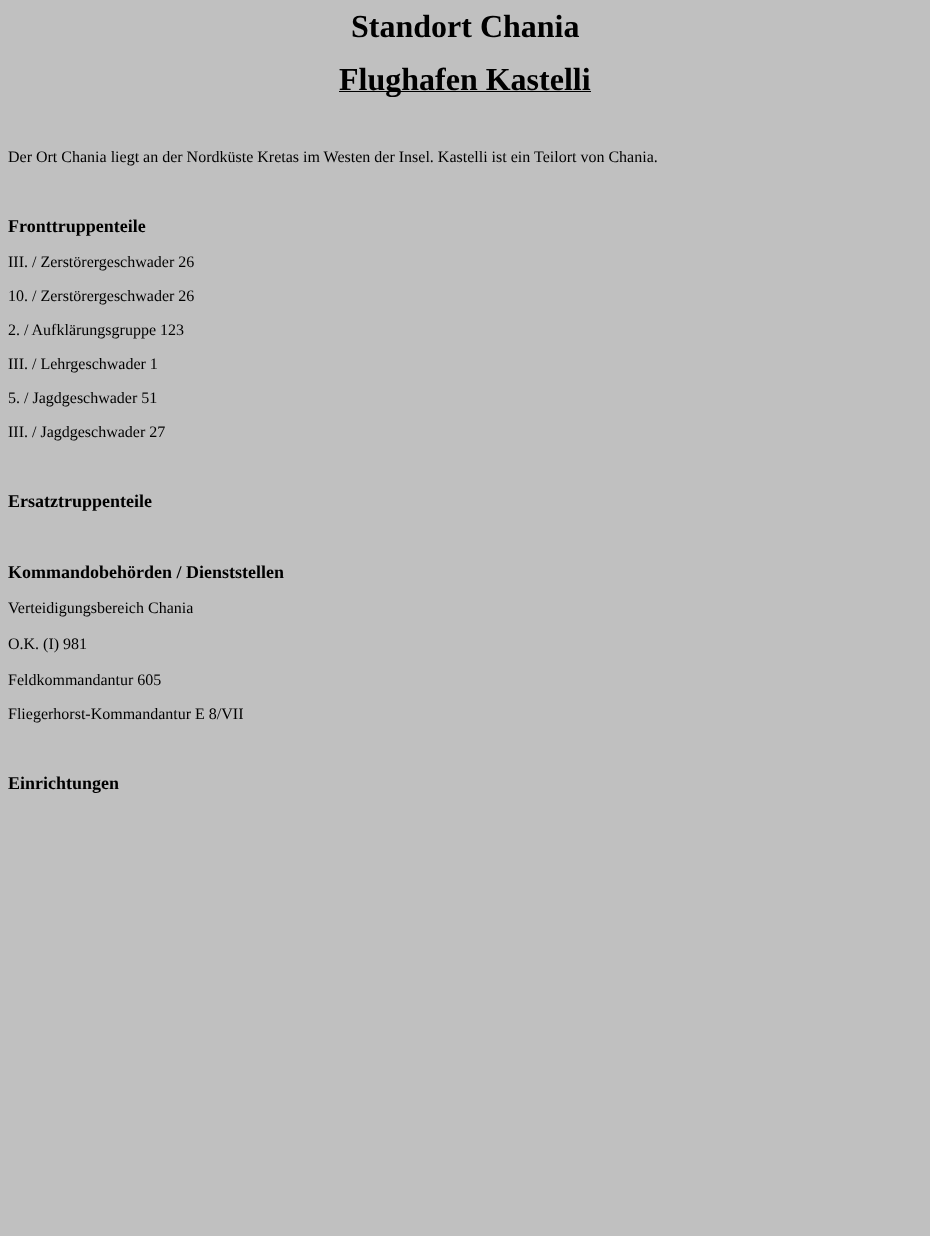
(async () => {
const canvas = document.querySelector("canvas")
canvas.width = 930
canvas.height = 1236
const c = canvas.getContext("2d")
c.miterLimit = 4
c.fontKerning = "normal"
function T(s,x,y){c.fillText(s,x,y)}
function R(x,y,w,h){c.fillRect(x,y,w,h)}
c.fillStyle="#c0c0c0"
R(0,0,930,1236)
c.font="bold 32px Liberation Serif"
c.fillStyle="#000"
T("Standort Chania",351,37)
R(339,91,252,1)
T("Flughafen Kastelli",339,90)
c.font="16px Liberation Serif"
T("Der Ort Chania liegt an der Nordküste Kretas im Westen der Insel. Kastelli ist ein Teilort von Chania.",8,162)
c.font="bold 18px Liberation Serif"
T("Fronttruppenteile",8,232)
c.font="16px Liberation Serif"
T("III. / Zerstörergeschwader 26",8,267)
T("10. / Zerstörergeschwader 26",8,301)
T("2. / Aufklärungsgruppe 123",8,335)
T("III. / Lehrgeschwader 1",8,369)
T("5. / Jagdgeschwader 51",8,403)
T("III. / Jagdgeschwader 27",8,437)
c.font="bold 18px Liberation Serif"
T("Ersatztruppenteile",8,507)
T("Kommandobehörden / Dienststellen",8,578)
c.font="16px Liberation Serif"
T("Verteidigungsbereich Chania",8,613)
T("O.K. (I) 981",8,649)
T("Feldkommandantur 605",8,685)
T("Fliegerhorst-Kommandantur E 8/VII",8,719)
c.font="bold 18px Liberation Serif"
T("Einrichtungen",8,789)
})()
